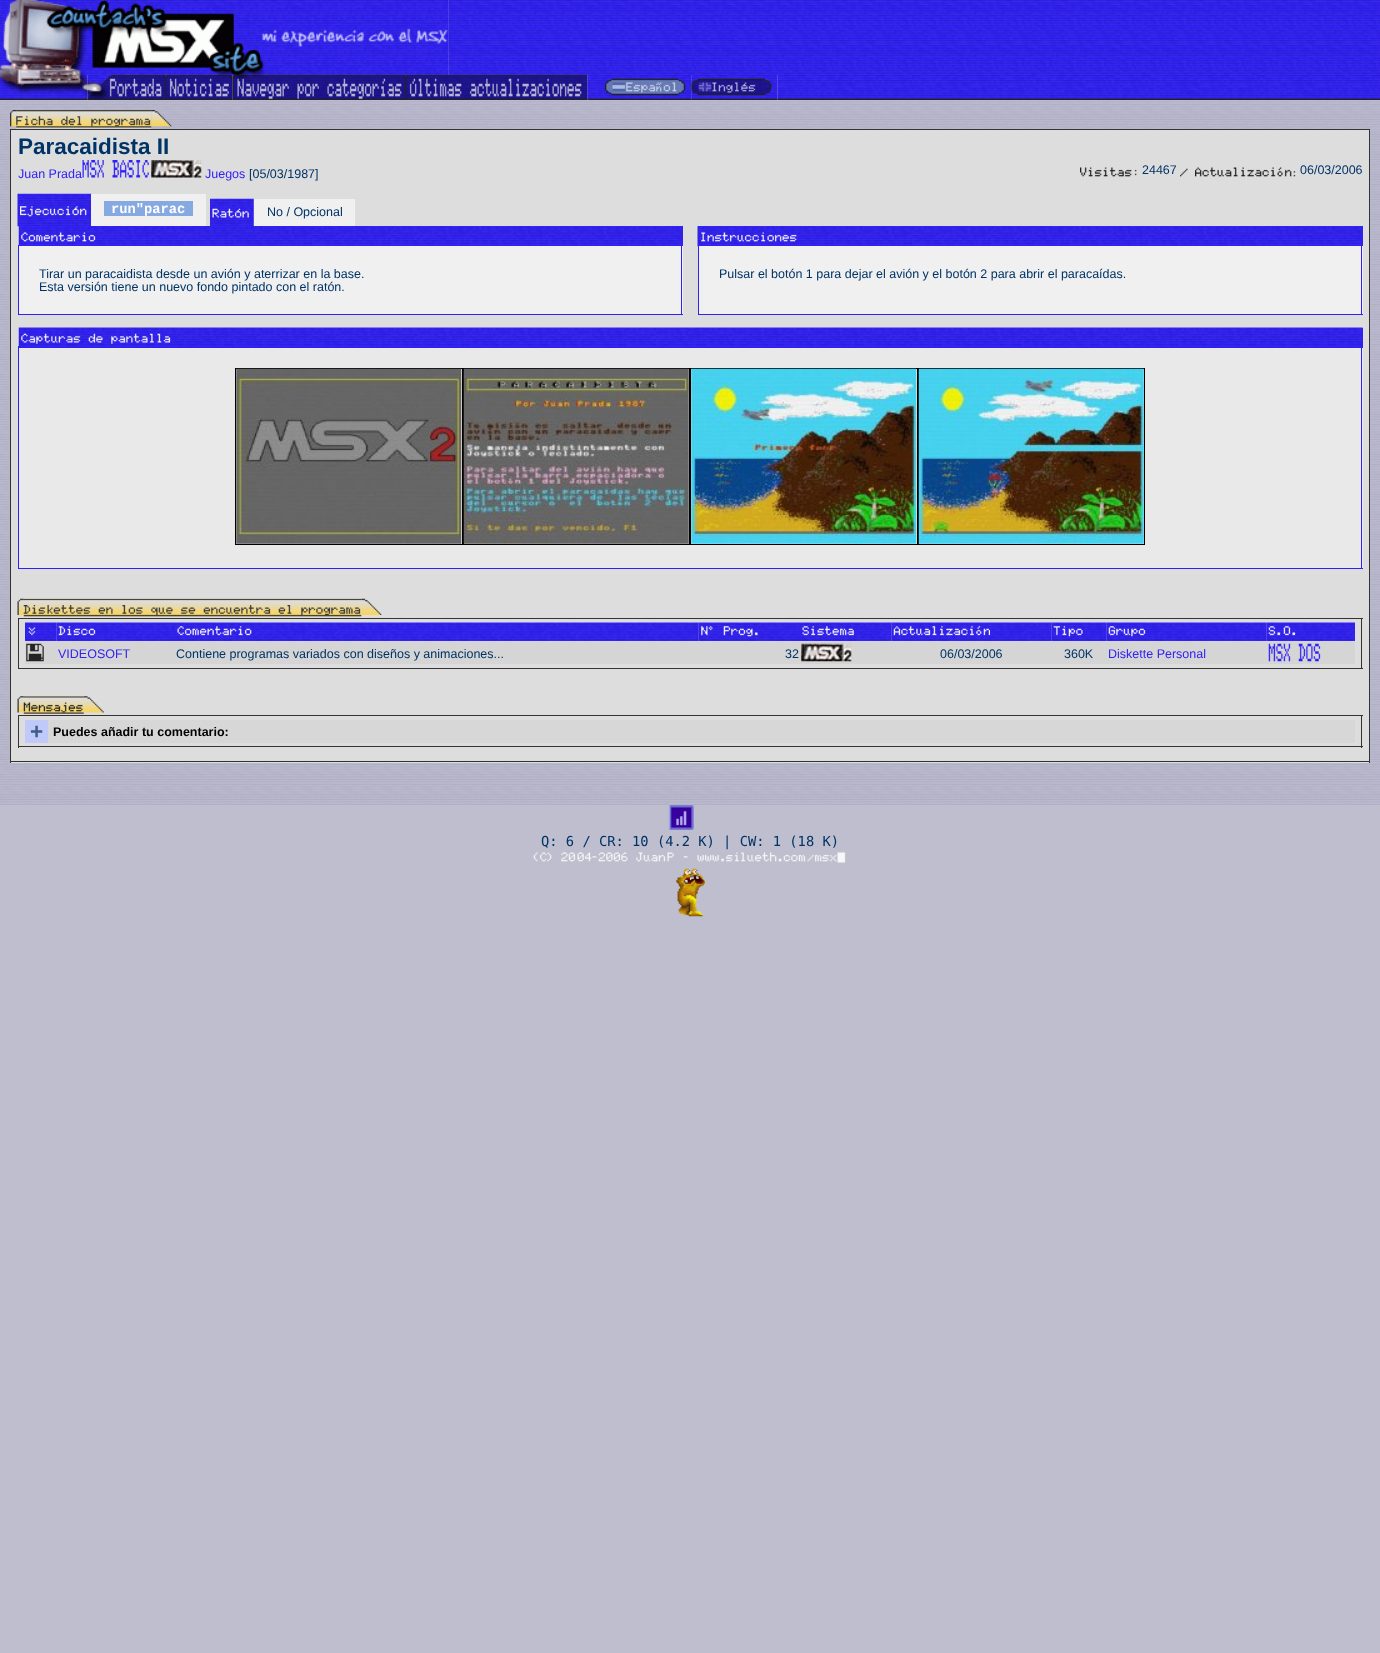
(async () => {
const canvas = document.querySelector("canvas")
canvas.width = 1380
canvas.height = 1653
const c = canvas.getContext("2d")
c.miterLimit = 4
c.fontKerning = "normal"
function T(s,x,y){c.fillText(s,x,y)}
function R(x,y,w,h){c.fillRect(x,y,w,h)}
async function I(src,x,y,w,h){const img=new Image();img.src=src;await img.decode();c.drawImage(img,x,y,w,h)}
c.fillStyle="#bebece"
R(0,0,1380,1653)
await I("1.png",0,0,260,75)
await I("3.png",448,0,932,75)
await I("2.png",260,0,189,75)
await I("4.png",0,75,88,25)
await I("5.png",87,75,78,25)
await I("6.png",165,75,68,25)
await I("7.png",232,75,173,25)
await I("8.png",405,75,183,25)
await I("9.png",587,75,18,25)
await I("10.png",605,75,87,25)
await I("12.png",777,75,603,25)
await I("11.png",691,75,87,25)
c.fillStyle="#bab9cf"
R(0,100,1380,1)
await I("13.png",0,101,1380,704)
await I("15.png",16,110,136,19)
await I("14.png",10,110,7,17)
await I("16.png",16,116,135,11)
await I("17.png",151,110,21,17)
c.fillStyle="#ddd"
R(11,130,1358,633)
c.fillStyle="#333"
R(10,129,1360,1)
R(1369,129,1,634)
R(10,761,1360,1)
R(10,129,1,634)
c.font="bold 22.5px Liberation Sans"
c.fillStyle="#036"
T("Paracaidista II",18,154)
c.font="12.5px Liberation Sans"
c.fillStyle="#3121f7"
T("Juan Prada",18,178)
await I("18.png",82,160,67,18)
await I("19.png",151,160,51,18)
T("Juegos",205,178)
c.fillStyle="#036"
T("[05/03/1987]",249,178)
await I("20.png",1080,167,57,10)
T("24467",1142,174)
await I("21.png",1180,168,8,9)
await I("22.png",1195,167,101,10)
T("06/03/2006",1300,174)
await I("23.png",17,193,75,34)
await I("24.png",20,206,67,11)
c.fillStyle="#f0f0f0"
R(91,194,115,32)
c.fillStyle="#87a9e2"
R(104,201,89,15)
c.font="bold 13.75px Liberation Mono"
c.fillStyle="#fff"
T("run\"parac",111,213)
await I("25.png",210,198,44,28)
await I("26.png",212,208,37,10)
c.fillStyle="#f0f0f0"
R(254,199,101,27)
c.font="12.5px Liberation Sans"
c.fillStyle="#036"
T("No / Opcional",267,216)
c.fillStyle="#3121f7"
R(19,226,664,19)
await I("27.png",18,226,665,19)
await I("28.png",21,232,75,10)
R(698,226,665,19)
await I("29.png",697,226,666,21)
await I("30.png",701,232,96,10)
c.fillStyle="#f0f0f0"
R(19,246,664,68)
c.fillStyle="#3121f7"
R(18,245,665,1)
R(681,245,1,70)
R(18,314,665,1)
R(18,245,1,70)
c.fillStyle="#036"
T("Tirar un paracaidista desde un avión y aterrizar en la base.",39,278)
T("Esta versión tiene un nuevo fondo pintado con el ratón.",39,291)
c.fillStyle="#f0f0f0"
R(699,246,664,68)
c.fillStyle="#3121f7"
R(698,245,665,1)
R(1361,245,1,70)
R(698,314,665,1)
R(698,245,1,70)
c.fillStyle="#036"
T("Pulsar el botón 1 para dejar el avión y el botón 2 para abrir el paracaídas.",719,278)
c.fillStyle="#3121f7"
R(19,328,1344,20)
await I("31.png",18,327,1345,21)
await I("32.png",21,333,150,11)
c.fillStyle="#e9e9e9"
R(19,348,1344,220)
c.fillStyle="#3121f7"
R(18,346,1345,1)
R(1361,346,1,223)
R(18,568,1345,1)
R(18,346,1,223)
c.strokeStyle="#000"
c.strokeRect(235.5,368.5,227,176)
await I("33.png",236,368,226,176)
c.strokeRect(463.5,368.5,226,176)
await I("34.png",463,368,226,176)
c.strokeRect(690.5,368.5,227,176)
await I("35.png",691,368,226,176)
c.strokeRect(918.5,368.5,226,176)
await I("36.png",918,368,226,176)
await I("38.png",23,598,339,19)
await I("37.png",17,598,7,17)
await I("39.png",23,605,338,10)
await I("40.png",361,598,21,17)
c.fillStyle="#333"
R(18,618,1345,1)
R(1361,618,1,51)
R(18,668,1345,1)
R(18,618,1,51)
await I("41.png",25,622,32,19)
await I("42.png",28,627,8,9)
await I("43.png",56,622,119,19)
await I("44.png",58,626,38,10)
await I("45.png",175,622,524,19)
await I("46.png",177,626,75,10)
await I("47.png",698,622,102,19)
await I("48.png",701,626,57,11)
await I("49.png",800,622,92,19)
await I("50.png",802,626,52,10)
await I("51.png",891,622,161,19)
await I("52.png",893,626,97,10)
await I("53.png",1051,622,56,19)
await I("54.png",1053,626,30,11)
await I("55.png",1106,622,161,19)
await I("56.png",1108,626,38,11)
await I("57.png",1266,622,89,19)
await I("58.png",1268,626,28,10)
c.fillStyle="#d5d5d5"
R(25,641,1330,23)
await I("59.png",26,643,18,19)
c.fillStyle="#3121f7"
T("VIDEOSOFT",58,658)
c.fillStyle="#036"
T("Contiene programas variados con diseños y animaciones...",176,658)
T("32",785,658)
await I("60.png",801,643,51,19)
T("06/03/2006",940,658)
T("360K",1064,658)
c.fillStyle="#3121f7"
T("Diskette Personal",1108,658)
await I("61.png",1268,643,53,19)
await I("63.png",23,696,61,18)
await I("62.png",17,696,7,17)
await I("64.png",23,702,60,11)
await I("65.png",83,696,21,17)
c.fillStyle="#333"
R(18,715,1345,1)
R(1361,715,1,33)
R(18,746,1345,1)
R(18,715,1,33)
c.fillStyle="#c0cafa"
R(25,720,23,23)
c.font="bold 22.5px Liberation Sans"
c.fillStyle="#3f5b8b"
T("+",30,739)
c.fillStyle="#d7d7d7"
R(48,720,1307,23)
c.font="bold 12.5px Liberation Sans"
c.fillStyle="#000"
T("Puedes añadir tu comentario:",53,736)
await I("66.png",668,805,26,25)
c.font="13.75px DejaVu Sans Mono"
c.fillStyle="#036"
T("Q: 6 / CR: 10 (4.2 K) | CW: 1 (18 K)",541,846)
await I("67.png",533,852,313,11)
await I("68.png",676,868,29,49)
})()
